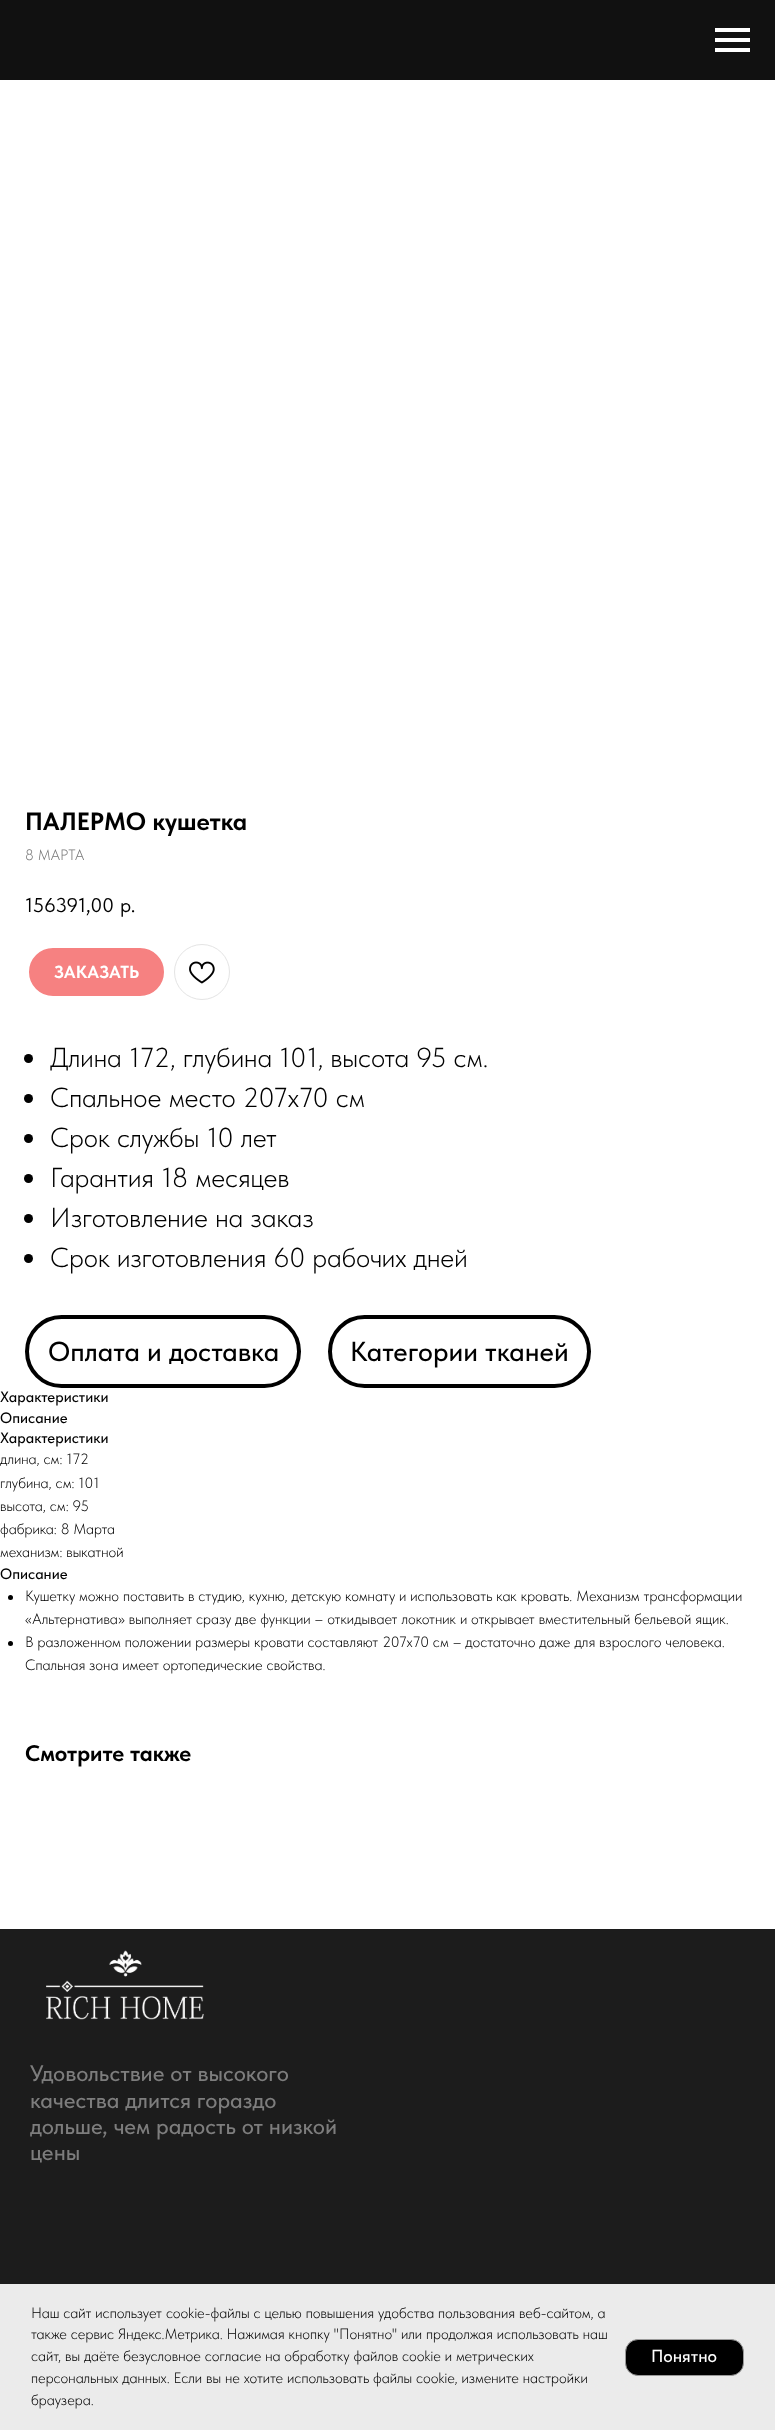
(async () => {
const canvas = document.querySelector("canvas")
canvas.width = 775
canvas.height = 2430
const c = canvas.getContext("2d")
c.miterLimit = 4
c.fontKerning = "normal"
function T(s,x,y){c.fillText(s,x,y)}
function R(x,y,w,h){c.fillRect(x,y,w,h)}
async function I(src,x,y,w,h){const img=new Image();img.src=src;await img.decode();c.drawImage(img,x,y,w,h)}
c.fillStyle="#fff"
R(0,0,775,2430)
c.fillStyle="#111"
R(0,0,775,80)
c.fillStyle="#fff"
R(715,28,35,4)
R(715,38,35,4)
R(715,48,35,4)
c.font="bold 25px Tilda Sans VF"
c.fillStyle="#000"
T("ПАЛЕРМО кушетка",25,830)
c.font="300 15px Tilda Sans VF"
c.fillStyle="#777"
T("8 МАРТА",25,860)
c.font="20px Tilda Sans VF"
c.fillStyle="#000"
T("156391,00",25,912)
T("р.",120,912)
c.fillStyle="#f68181"
c.beginPath()
c.roundRect(27,946,139,52,26)
c.fill()
c.strokeStyle="#fff"
c.lineWidth=4
c.stroke()
c.font="bold 17.5px Tilda Sans VF"
c.fillStyle="#fff"
T("ЗАКАЗАТЬ",54,978)
c.beginPath()
c.arc(202,972,27.5,0,7)
c.strokeStyle="#e4e4e4"
c.lineWidth=1
c.stroke()
await I("1.png",189,961,26,23)
c.fillStyle="#000"
c.beginPath()
c.arc(28.5,1058.5,4.5,0,7)
c.fill()
c.font="300 27.5px Tilda Sans VF"
T("Длина 172, глубина 101, высота 95 см.",50,1067)
c.beginPath()
c.arc(28.5,1098.5,4.5,0,7)
c.fill()
T("Спальное место 207х70 см",50,1107)
c.beginPath()
c.arc(28.5,1138.5,4.5,0,7)
c.fill()
T("Срок службы 10 лет",50,1147)
c.beginPath()
c.arc(28.5,1178.5,4.5,0,7)
c.fill()
T("Гарантия 18 месяцев",50,1187)
c.beginPath()
c.arc(28.5,1218.5,4.5,0,7)
c.fill()
T("Изготовление на заказ",50,1227)
c.beginPath()
c.arc(28.5,1258.5,4.5,0,7)
c.fill()
T("Срок изготовления 60 рабочих дней",50,1267)
c.beginPath()
c.roundRect(27,1317,272,69,34.5)
c.strokeStyle="#000"
c.lineWidth=4
c.stroke()
c.font="500 27.5px Tilda Sans VF"
T("Оплата и доставка",48,1361)
c.beginPath()
c.roundRect(330,1317,259,69,34.5)
c.stroke()
T("Категории тканей",350,1361)
c.font="500 15px Tilda Sans VF"
T("Характеристики",0,1402)
T("Описание",0,1423)
T("Характеристики",0,1443)
c.font="300 15px Tilda Sans VF"
T("длина, см: 172",0,1464)
T("глубина, см: 101",0,1488)
T("высота, см: 95",0,1511)
T("фабрика: 8 Марта",0,1534)
T("механизм: выкатной",0,1557)
c.font="500 15px Tilda Sans VF"
T("Описание",0,1579)
c.beginPath()
c.arc(10.5,1597.5,2.5,0,7)
c.fill()
c.font="300 15px Tilda Sans VF"
T("Кушетку можно поставить в студию, кухню, детскую комнату и использовать как кровать. Механизм трансформации",25,1601)
T("«Альтернатива» выполняет сразу две функции – откидывает локотник и открывает вместительный бельевой ящик.",25,1624)
c.beginPath()
c.arc(10.5,1643.5,2.5,0,7)
c.fill()
T("В разложенном положении размеры кровати составляют 207х70 см – достаточно даже для взрослого человека.",25,1647)
T("Спальная зона имеет ортопедические свойства.",25,1670)
c.font="bold 22.5px Tilda Sans VF"
T("Смотрите также",25,1761)
c.fillStyle="#1c1c1c"
R(0,1929,775,355)
await I("2.png",46,1950,158,70)
c.font="500 22.5px Tilda Sans VF"
c.fillStyle="#7d7d7d"
T("Удовольствие от высокого",30,2081)
T("качества длится гораздо",30,2108)
T("дольше, чем радость от низкой",30,2134)
T("цены",30,2160)
c.fillStyle="#ebebeb"
R(0,2284,775,146)
c.font="300 15px Tilda Sans VF"
c.fillStyle="#000"
T("Наш сайт использует cookie-файлы с целью повышения удобства пользования веб-сайтом, а",31,2318)
T("также сервис Яндекс.Метрика. Нажимая кнопку \"Понятно\" или продолжая использовать наш",31,2339)
T("сайт, вы даёте безусловное согласие на обработку файлов cookie и метрических",31,2361)
T("персональных данных. Если вы не хотите использовать файлы cookie, измените настройки",31,2383)
T("браузера.",31,2405)
c.beginPath()
c.roundRect(625.5,2339.5,118,36,12.5)
c.fill()
c.strokeStyle="#999"
c.lineWidth=1
c.stroke()
c.font="500 17.5px Tilda Sans VF"
c.fillStyle="#fff"
T("Понятно",651,2362)
})()
